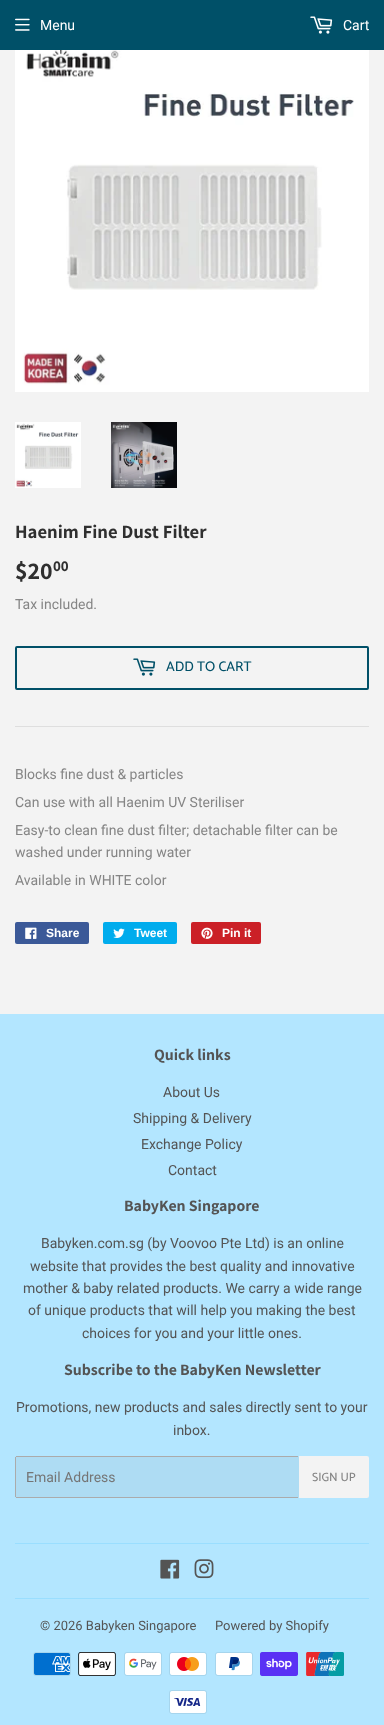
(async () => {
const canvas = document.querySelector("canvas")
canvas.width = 384
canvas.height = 1725
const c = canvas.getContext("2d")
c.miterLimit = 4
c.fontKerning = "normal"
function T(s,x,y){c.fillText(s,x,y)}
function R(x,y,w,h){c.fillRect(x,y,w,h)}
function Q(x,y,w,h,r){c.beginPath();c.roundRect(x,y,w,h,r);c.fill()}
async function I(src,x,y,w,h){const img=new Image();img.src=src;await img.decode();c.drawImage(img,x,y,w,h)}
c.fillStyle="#f3f3f3"
R(0,0,384,1725)
c.fillStyle="#005068"
R(0,0,384,50)
await I("1.png",15,18,15,13)
c.font="14px Roboto"
c.fillStyle="#fff"
T("Menu",40,30)
await I("2.png",310,16,23,18)
T("Cart",343,30)
await I("3.png",15,50,354,342)
await I("4.png",15,422,66,66)
await I("5.png",111,422,66,66)
c.font="bold 18.75px Assistant"
c.fillStyle="#2f2f2f"
T("Haenim Fine Dust Filter",15,538)
c.font="bold 24px Assistant"
T("$20",15,579)
c.font="bold 15px Assistant"
T("00",53,571)
c.font="14px Roboto"
c.fillStyle="#858585"
T("Tax included.",15,609)
c.beginPath()
c.roundRect(16,647,352,42,1)
c.strokeStyle="#005068"
c.lineWidth=2
c.stroke()
await I("6.png",133,658,23,18)
c.font="500 14px Catamaran"
c.fillStyle="#005068"
T("ADD TO CART",166,671)
c.fillStyle="#dedede"
R(15,726,354,1)
c.font="14px Roboto"
c.fillStyle="#858585"
T("Blocks fine dust & particles",15,779)
T("Can use with all Haenim UV Steriliser",15,807)
T("Easy-to clean fine dust filter; detachable filter can be",15,835)
T("washed under running water",15,857)
T("Available in WHITE color",15,885)
c.fillStyle="#3b5998"
Q(15,922,74,22,2)
await I("7.png",25,927,12,12)
c.font="bold 12px Liberation Sans"
c.fillStyle="#fff"
T("Share",46,937)
c.fillStyle="#00aced"
Q(103,922,74,22,2)
await I("8.png",113,928,12,10)
c.fillStyle="#fff"
T("Tweet",134,937)
c.fillStyle="#cb2027"
Q(191,922,70,22,2)
await I("9.png",201,927,12,12)
c.fillStyle="#fff"
T("Pin it",222,937)
c.fillStyle="#b3e6ff"
R(0,1014,384,711)
c.font="bold 15.9px Assistant"
c.fillStyle="#545454"
T("Quick links",154,1060)
c.font="14px Roboto"
T("About Us",163,1097)
T("Shipping & Delivery",133,1123)
T("Exchange Policy",141,1149)
T("Contact",168,1175)
c.font="bold 15.9px Assistant"
T("BabyKen Singapore",124,1211)
c.font="14px Roboto"
T("Babyken.com.sg (by Voovoo Pte Ltd) is an online",41,1248)
T("website that provides the best quality and innovative",30,1271)
T("mother & baby related products. We carry a wide range",23,1293)
T("of unique products that will help you making the best",28,1315)
T("choices for you and your little ones.",82,1338)
c.font="bold 15.9px Assistant"
T("Subscribe to the BabyKen Newsletter",64,1375)
c.font="14px Roboto"
T("Promotions, new products and sales directly sent to your",16,1412)
T("inbox.",173,1435)
c.fillStyle="#aedcf3"
Q(15,1456,284,42,2)
c.fillStyle="#ababab"
R(16,1456,282,1)
R(16,1497,282,1)
R(15,1457,1,40)
c.fillStyle="#757575"
T("Email Address",26,1482)
c.fillStyle="#f3f3f3"
c.beginPath()
c.roundRect(299,1456,70,42,[0,2,2,0])
c.fill()
c.font="500 12px Catamaran"
c.fillStyle="#858585"
T("SIGN UP",312,1481)
c.fillStyle="#9adeff"
R(15,1543,354,1)
await I("10.png",160,1559,20,20)
await I("11.png",194,1559,20,20)
R(15,1598,354,1)
c.font="13px Roboto"
c.fillStyle="#545454"
T("© 2026 Babyken Singapore",40,1630)
T("Powered by Shopify",215,1630)
await I("12.png",33,1652,38,24)
await I("13.png",78,1652,38,24)
await I("14.png",124,1652,38,24)
await I("15.png",169,1652,38,24)
await I("16.png",215,1652,38,24)
await I("17.png",260,1652,38,24)
await I("18.png",306,1652,38,24)
await I("19.png",169,1690,38,24)
})()
